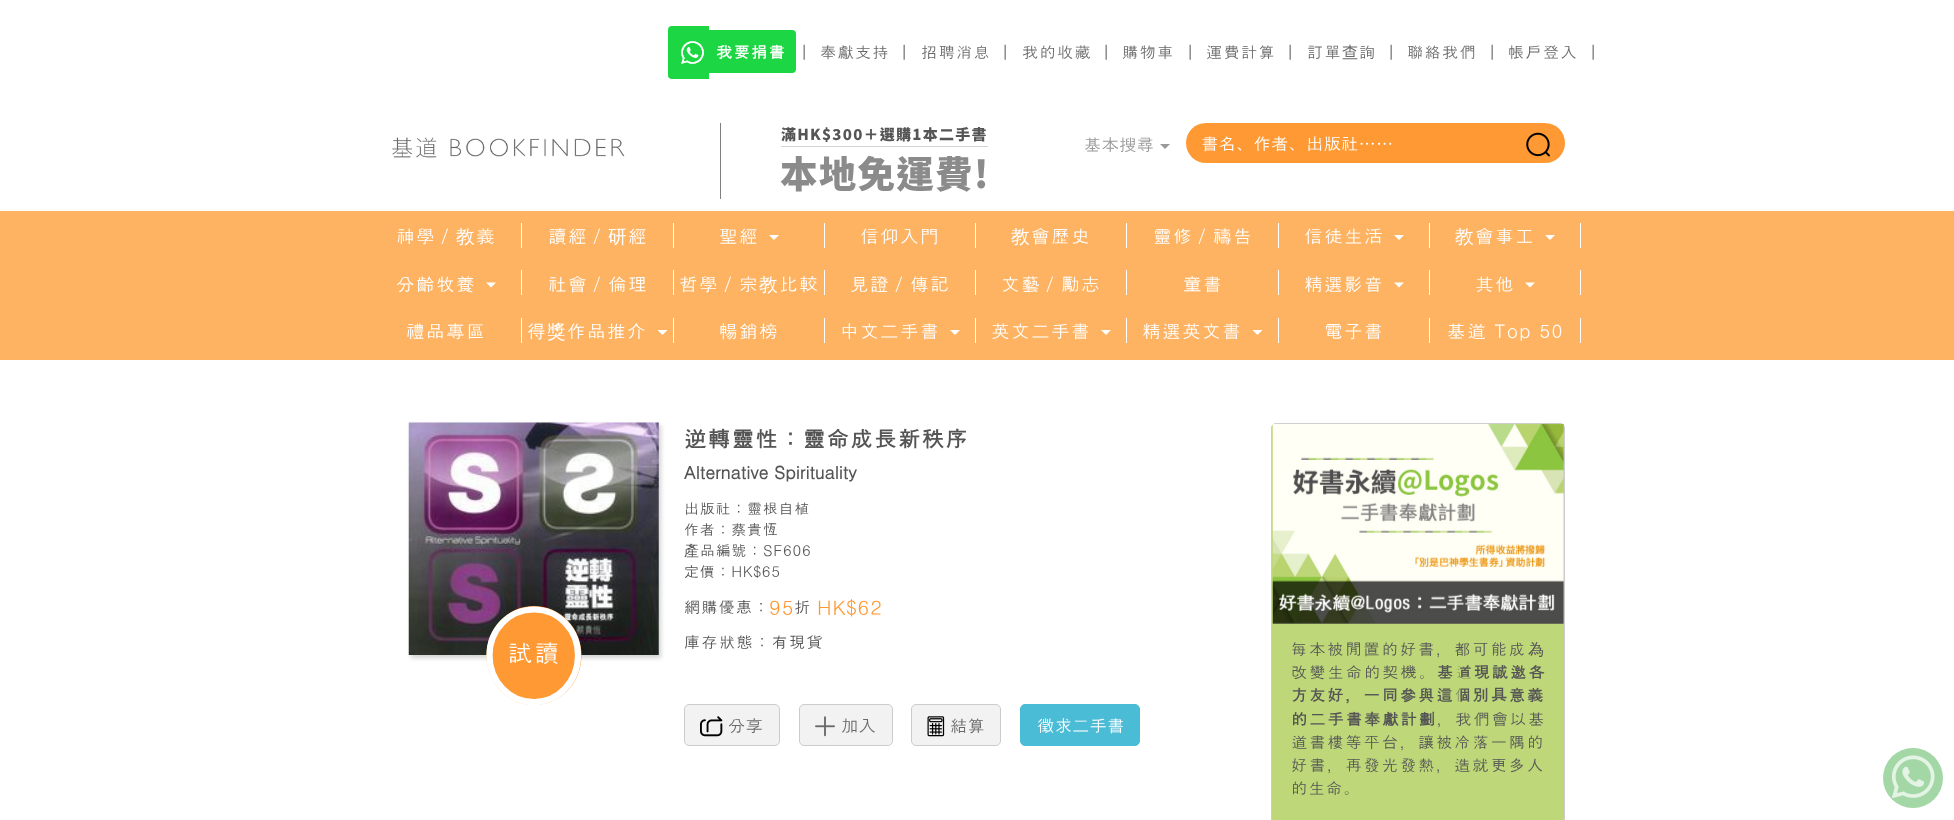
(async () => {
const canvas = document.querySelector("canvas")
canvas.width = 1954
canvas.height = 820
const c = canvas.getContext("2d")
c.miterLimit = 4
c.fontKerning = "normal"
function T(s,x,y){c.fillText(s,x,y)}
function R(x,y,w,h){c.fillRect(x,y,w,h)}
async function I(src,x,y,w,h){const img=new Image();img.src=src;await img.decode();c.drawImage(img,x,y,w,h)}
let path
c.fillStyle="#fff"
R(0,0,1954,820)
c.fillStyle="#1cd743"
c.beginPath()
c.roundRect(668,26,41,53,[4,0,0,4])
c.fill()
await I("1.png",681,41,23,23)
c.beginPath()
c.roundRect(709,30,87,43,[0,4,4,0])
c.fill()
c.letterSpacing="1.25px"
c.font="bold 16.25px Dotum"
c.fillStyle="#fff"
T("我要捐書",716,58)
c.font="16.25px Dotum"
c.fillStyle="#555"
T("｜",796,58)
c.fillStyle="#696969"
T("奉獻支持",820,58)
c.fillStyle="#555"
T("｜",896,58)
c.fillStyle="#696969"
T("招聘消息",921,58)
c.fillStyle="#555"
T("｜",997,58)
c.fillStyle="#696969"
T("我的收藏",1022,58)
c.fillStyle="#555"
T("｜",1098,58)
c.fillStyle="#696969"
T("購物車",1122,58)
c.fillStyle="#555"
T("｜",1182,58)
c.fillStyle="#696969"
T("運費計算",1206,58)
c.fillStyle="#555"
T("｜",1282,58)
c.fillStyle="#696969"
T("訂單",1307,58)
c.font="500 16.25px WenQuanYi Zen Hei"
T("查",1342,58)
c.font="16.25px Dotum"
T("詢",1359,58)
c.fillStyle="#555"
T("｜",1383,58)
c.fillStyle="#696969"
T("聯絡我們",1407,58)
c.fillStyle="#555"
T("｜",1484,58)
c.fillStyle="#696969"
T("帳戶登入",1508,58)
c.fillStyle="#555"
T("｜",1585,58)
await I("2.png",392,137,233,21)
c.fillStyle="#808080"
R(720,123,1,76)
c.font="900 15px Noto Sans TC"
c.fillStyle="#555"
T("滿HK$300＋選購1本二手書",781,140)
c.fillStyle="#d3d3d3"
R(781,146,207,1)
c.font="900 37.5px Noto Sans TC"
c.fillStyle="#8b8b8b"
T("本地免運費!",780,188)
c.letterSpacing="0px"
c.font="17.5px Dotum"
c.fillStyle="#999"
T("基本搜尋",1084,151)
path = new Path2D("M1160 144h10l-5 5z")
c.fill(path)
c.fillStyle="#f93"
c.beginPath()
c.roundRect(1186,123,325,40,[20,0,0,20])
c.fill()
c.fillStyle="#fff"
T("書名、作者、出版社……",1201,150)
c.fillStyle="#f93"
c.beginPath()
c.roundRect(1511,123,54,40,[0,20,20,0])
c.fill()
await I("3.png",1526,132,24,25)
c.fillStyle="#feb363"
R(0,211,1954,149)
c.fillStyle="#fff"
R(521,223,1,25)
c.letterSpacing="1.25px"
c.font="18.75px Dotum"
T("神學／",396,243)
c.font="500 18.75px WenQuanYi Zen Hei"
T("教",456,243)
c.font="18.75px Dotum"
T("義",476,243)
R(673,223,1,25)
T("讀經／",548,243)
c.font="500 18.75px WenQuanYi Zen Hei"
T("研",608,243)
c.font="18.75px Dotum"
T("經",628,243)
R(824,223,1,25)
T("聖經",719,243)
path = new Path2D("M769 235h10l-5 5z")
c.fill(path)
R(975,223,1,25)
T("信仰入門",860,243)
R(1126,223,1,25)
c.font="500 18.75px WenQuanYi Zen Hei"
T("教",1011,243)
c.font="18.75px Dotum"
T("會歷史",1031,243)
R(1278,223,1,25)
T("靈修／禱告",1153,243)
R(1429,223,1,25)
T("信徒生活",1304,243)
path = new Path2D("M1394 235h10l-5 5z")
c.fill(path)
R(1580,223,1,25)
c.font="500 18.75px WenQuanYi Zen Hei"
T("教",1455,243)
c.font="18.75px Dotum"
T("會事工",1475,243)
path = new Path2D("M1545 235h10l-5 5z")
c.fill(path)
R(521,270,1,25)
T("分齡牧養",396,291)
path = new Path2D("M486 282.5h10l-5 5z")
c.fill(path)
R(673,270,1,25)
T("社會／倫理",548,291)
R(824,270,1,25)
T("哲學／宗",679,291)
c.font="500 18.75px WenQuanYi Zen Hei"
T("教",759,291)
c.font="18.75px Dotum"
T("比較",779,291)
R(975,270,1,25)
T("見證／傳記",850,291)
R(1126,270,1,25)
T("文藝／勵志",1001,291)
R(1278,270,1,25)
T("童書",1183,291)
R(1429,270,1,25)
T("精選影音",1304,291)
path = new Path2D("M1394 282.5h10l-5 5z")
c.fill(path)
R(1580,270,1,25)
T("其他",1475,291)
path = new Path2D("M1525 282.5h10l-5 5z")
c.fill(path)
R(521,318,1,25)
T("禮品專區",406,338)
R(673,318,1,25)
T("得",527,338)
c.font="500 18.75px WenQuanYi Zen Hei"
T("獎",547,338)
c.font="18.75px Dotum"
T("作品推介",567,338)
path = new Path2D("M657.5 330h10l-5 5z")
c.fill(path)
R(824,318,1,25)
T("暢銷榜",719,338)
R(975,318,1,25)
T("中文二手書",840,338)
path = new Path2D("M950 330h10l-5 5z")
c.fill(path)
R(1126,318,1,25)
T("英文二手書",991,338)
path = new Path2D("M1101 330h10l-5 5z")
c.fill(path)
R(1278,318,1,25)
T("精選英文書",1142,338)
path = new Path2D("M1252.5 330h10l-5 5z")
c.fill(path)
R(1429,318,1,25)
T("電子書",1324,338)
R(1580,318,1,25)
T("基道 Top 50",1447,338)
c.fillStyle="#d3d3d3"
c.filter="blur(2px)"
c.beginPath()
c.rect(411,425,250,233)
c.fill()
c.filter="none"
await I("4.png",408,422,251,233)
c.fillStyle="#f93"
c.beginPath()
c.ellipse(534,655.5,47.5,49.5,0,0,7)
c.fill()
path = new Path2D("M534 609.5c24.5 0 44 20.5 44 46c0 25.5-19.5 46.5-44 46.5c-25 0-44.5-21-44.5-46.5c0-25.5 19.5-46 44.5-46z")
c.strokeStyle="#fff"
c.lineWidth=6.2
c.stroke(path)
c.font="25px Dotum"
c.fillStyle="#fff"
T("試讀",508,662)
c.font="bold 22.5px Dotum"
c.fillStyle="#555"
T("逆轉靈性：靈命成長新秩序",684,447)
c.letterSpacing="0px"
c.font="bold 17.5px Dotum"
T("Alternative Spirituality",684,479)
c.letterSpacing="0.75px"
c.font="15px Dotum"
T("出版社：靈根自植",684,514)
T("作者：蔡貴恆",684,535)
c.font="500 15px WenQuanYi Zen Hei"
T("產",684,556)
c.font="15px Dotum"
T("品編號：SF606",700,556)
T("定價：HK$65",684,577)
c.letterSpacing="1px"
c.font="16.25px Dotum"
T("網購優惠：",684,613)
c.font="20px Dotum"
c.fillStyle="#f93"
T("95",769,615)
c.font="16.25px Dotum"
c.fillStyle="#555"
T("折",794,613)
c.font="20px Dotum"
c.fillStyle="#f93"
T("HK$62",817,615)
c.letterSpacing="1.25px"
c.font="16.25px Dotum"
c.fillStyle="#555"
T("庫存狀態：有現貨",684,648)
c.fillStyle="#f2f2f2"
c.beginPath()
c.roundRect(684.5,704.5,95,41,4.5)
c.fill()
c.strokeStyle="#ccc"
c.lineWidth=1
c.stroke()
await I("5.png",700,716,23,21)
c.letterSpacing="0px"
c.font="17.5px Dotum"
c.fillStyle="#696969"
T("分享",728,732)
c.fillStyle="#f2f2f2"
c.beginPath()
c.roundRect(799.5,704.5,93,41,4.5)
c.fill()
c.stroke()
await I("6.png",815,716,20,21)
c.fillStyle="#696969"
T("加入",841,732)
c.fillStyle="#f2f2f2"
c.beginPath()
c.roundRect(911.5,704.5,89,41,4.5)
c.fill()
c.stroke()
await I("7.png",927,716,18,21)
c.fillStyle="#696969"
T("結算",950,732)
c.fillStyle="#4bbcd6"
c.beginPath()
c.roundRect(1020.5,704.5,119,41,4.5)
c.fill()
c.strokeStyle="#4bbcd6"
c.stroke()
c.fillStyle="#fff"
T("徵求二手書",1037,732)
c.fillStyle="#bdd779"
c.beginPath()
c.roundRect(1271.5,423.5,293,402,4.5)
c.fill()
c.strokeStyle="#ccc"
c.stroke()
R(1273,424,291,4)
await I("8.png",1272,423,292,201)
c.letterSpacing="1.9px"
c.font="16.25px Dotum"
c.fillStyle="#555"
T("每本被閒置的好書，都可能成",1291,655)
c.font="500 16.25px WenQuanYi Zen Hei"
T("為",1528,655)
c.letterSpacing="2px"
c.font="16.25px Dotum"
T("改變生命的契機。",1291,678)
c.font="bold 16.25px Dotum"
T("基道現誠邀各",1437,678)
c.letterSpacing="1.9px"
T("方友好，一同參與這個別具意義",1291,701)
c.letterSpacing="2px"
T("的二手書奉獻計劃",1291,725)
c.font="16.25px Dotum"
T("，我們會以基",1437,725)
c.letterSpacing="1.9px"
T("道書樓等平台，讓被冷落一隅的",1291,748)
T("好書，再發光發熱，造就更多人",1291,771)
c.letterSpacing="1.25px"
T("的生命。",1291,794)
c.fillStyle="#a3d7a5"
c.beginPath()
c.arc(1913,778,30,0,7)
c.fill()
await I("9.png",1891,755,44,44)
})()
